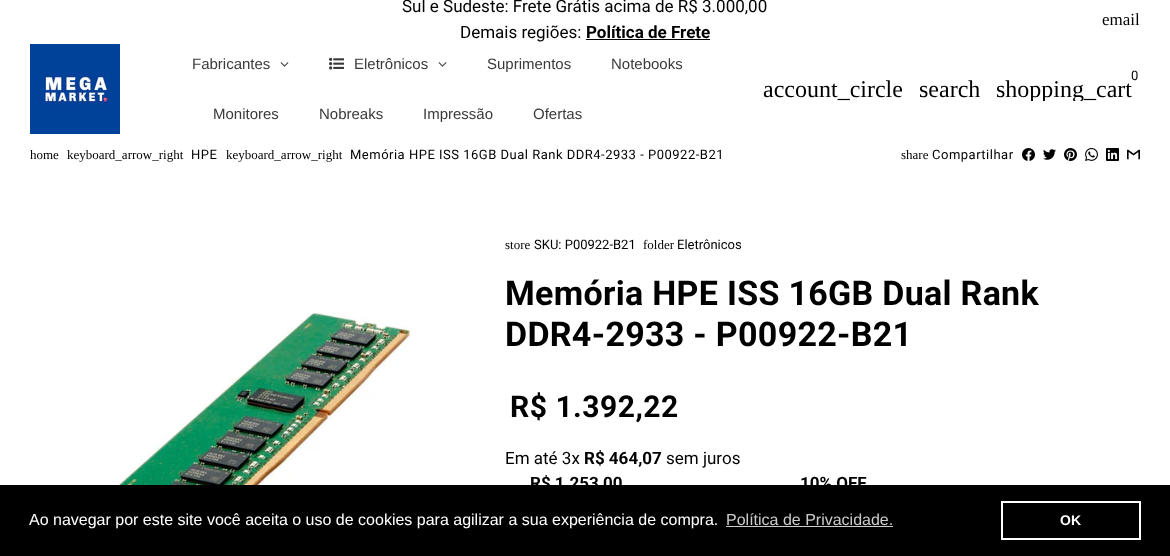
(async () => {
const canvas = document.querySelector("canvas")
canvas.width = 1170
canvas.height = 556
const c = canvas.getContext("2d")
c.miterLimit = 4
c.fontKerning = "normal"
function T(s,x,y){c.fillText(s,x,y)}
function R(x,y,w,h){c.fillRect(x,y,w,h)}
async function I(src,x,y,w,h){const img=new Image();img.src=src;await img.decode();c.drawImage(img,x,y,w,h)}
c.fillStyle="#fff"
R(0,0,1170,556)
c.font="17px Roboto"
c.fillStyle="#000"
T("Sul e Sudeste: Frete Grátis acima de R$ 3.000,00",402,12)
T("Demais regiões:",460,38)
c.font="bold 17px Roboto"
T("Política de Frete",586,38)
R(586,39,124,1)
c.font="17px Liberation Serif"
T("email",1102,25)
await I("1.png",30,44,90,90)
c.font="15px Liberation Sans"
c.fillStyle="#3a3a3a"
T("Fabricantes",192,69)
await I("2.png",280,62,9,5)
await I("3.png",329,57,15,13)
T("Eletrônicos",354,69)
await I("2.png",438,62,9,5)
T("Suprimentos",487,69)
T("Notebooks",611,69)
T("Monitores",213,119)
T("Nobreaks",319,119)
T("Impressão",423,119)
T("Ofertas",533,119)
c.font="24px Liberation Serif"
c.fillStyle="#000"
T("account_circle",763,97)
T("search",919,97)
c.font="13px Roboto"
T("0",1131,80)
c.save()
c.beginPath()
c.rect(996,77,136,24)
c.clip()
c.font="24px Liberation Serif"
T("shopping_cart",996,97)
c.restore()
c.font="13px Liberation Serif"
T("home",30,159)
T("keyboard_arrow_right",67,159)
c.letterSpacing="0.5px"
c.font="13px Roboto"
T("HPE",191,159)
c.letterSpacing="0px"
c.font="13px Liberation Serif"
T("keyboard_arrow_right",226,159)
c.letterSpacing="0.5px"
c.font="13px Roboto"
T("Memória HPE ISS 16GB Dual Rank DDR4-2933 - P00922-B21",350,159)
c.letterSpacing="0px"
c.font="13px Liberation Serif"
T("share",901,159)
c.letterSpacing="0.5px"
c.font="13px Roboto"
T("Compartilhar",932,159)
await I("4.png",1022,148,13,13)
await I("5.png",1043,149,13,11)
await I("6.png",1064,148,13,13)
await I("7.png",1085,148,13,13)
await I("8.png",1106,148,13,13)
await I("9.png",1127,149,13,11)
await I("10.png",101,312,311,173)
c.letterSpacing="0px"
c.font="13px Liberation Serif"
T("store",505,249)
c.font="13px Roboto"
T("SKU: P00922-B21",534,249)
c.font="13px Liberation Serif"
T("folder",643,249)
c.font="13px Roboto"
T("Eletrônicos",677,249)
c.letterSpacing="0.3px"
c.font="bold 34px Roboto"
T("Memória HPE ISS 16GB Dual Rank",505,305)
T("DDR4-2933 - P00922-B21",505,346)
c.letterSpacing="0.5px"
c.font="bold 30px Roboto"
T("R$ 1.392,22",510,417)
c.letterSpacing="0px"
c.font="17px Roboto"
T("Em até 3x",505,464)
c.font="bold 17px Roboto"
T("R$ 464,07",584,464)
c.font="17px Roboto"
T("sem juros",666,464)
c.font="bold 17px Roboto"
T("R$ 1.253,00",530,489)
T("10% OFF",800,489)
R(0,485,1170,71)
c.font="16px Liberation Sans"
c.fillStyle="#fff"
T("Ao navegar por este site você aceita o uso de cookies para agilizar a sua experiência de compra.",29,525)
c.fillStyle="#ccc"
T("Política de Privacidade.",726,525)
R(726,526,167,1)
c.strokeStyle="#fff"
c.lineWidth=2
c.strokeRect(1002,502,138,37)
c.font="bold 14px Liberation Sans"
c.fillStyle="#fff"
T("OK",1060,525)
})()
